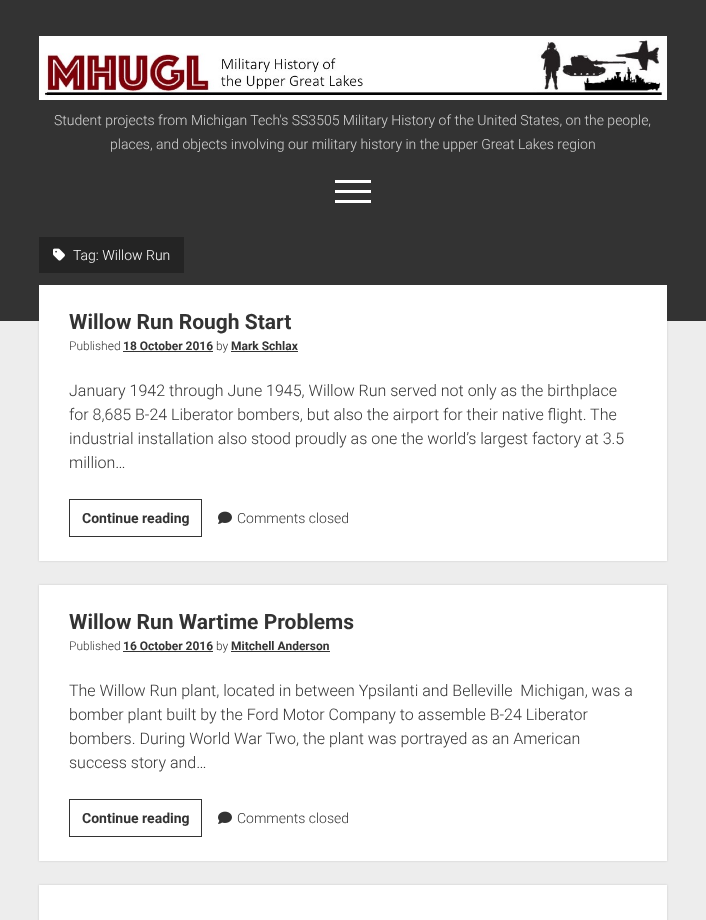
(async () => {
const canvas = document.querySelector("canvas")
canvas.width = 706
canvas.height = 920
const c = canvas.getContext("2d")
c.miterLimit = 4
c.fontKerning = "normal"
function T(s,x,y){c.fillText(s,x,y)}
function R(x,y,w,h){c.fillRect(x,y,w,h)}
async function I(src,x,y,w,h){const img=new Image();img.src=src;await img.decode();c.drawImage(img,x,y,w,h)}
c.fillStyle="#ededed"
R(0,0,706,920)
c.fillStyle="#333"
R(0,0,706,321)
await I("1.png",39,36,628,64)
c.font="300 14px Roboto"
c.fillStyle="#d4d4d4"
T("Student projects from Michigan Tech's SS3505 Military History of the United States, on the people,",54,125)
T("places, and objects involving our military history in the upper Great Lakes region",110,149)
c.fillStyle="#fff"
R(335,180,36,3)
R(335,190,36,3)
R(335,200,36,3)
c.fillStyle="#242424"
R(39,237,145,36)
await I("2.png",53,248,12,13)
c.fillStyle="#fff"
T("Tag: Willow Run",73,260)
c.fillStyle="#3a3a3a33"
c.filter="blur(1px)"
c.beginPath()
c.rect(39,285,628,276)
c.fill()
c.filter="none"
c.fillStyle="#fff"
R(39,285,628,276)
c.font="bold 21px Roboto"
c.fillStyle="#333"
T("Willow Run Rough Start",69,329)
c.font="300 12px Roboto"
T("Published",69,350)
c.font="bold 12px Roboto"
T("18 October 2016",123,350)
R(123,351,90,1)
c.font="300 12px Roboto"
T("by",216,350)
c.font="bold 12px Roboto"
T("Mark Schlax",231,350)
R(231,351,67,1)
c.font="300 16px Roboto"
T("January 1942 through June 1945, Willow Run served not only as the birthplace",69,396)
T("for 8,685 B-24 Liberator bombers, but also the airport for their native flight. The",69,420)
T("industrial installation also stood proudly as one the world’s largest factory at 3.5",69,444)
T("million…",69,468)
c.strokeStyle="#333"
c.strokeRect(69.5,499.5,132,37)
c.font="bold 14px Roboto"
T("Continue reading",82,523)
await I("3.png",218,511,14,13)
c.font="300 14px Roboto"
T("Comments closed",237,523)
c.fillStyle="#3a3a3a33"
c.filter="blur(1px)"
c.beginPath()
c.rect(39,585,628,276)
c.fill()
c.filter="none"
c.fillStyle="#fff"
R(39,585,628,276)
c.font="bold 21px Roboto"
c.fillStyle="#333"
T("Willow Run Wartime Problems",69,629)
c.font="300 12px Roboto"
T("Published",69,650)
c.font="bold 12px Roboto"
T("16 October 2016",123,650)
R(123,651,90,1)
c.font="300 12px Roboto"
T("by",216,650)
c.font="bold 12px Roboto"
T("Mitchell Anderson",231,650)
R(231,651,99,1)
c.font="300 16px Roboto"
T("The Willow Run plant, located in between Ypsilanti and Belleville  Michigan, was a",69,696)
T("bomber plant built by the Ford Motor Company to assemble B-24 Liberator",69,720)
T("bombers. During World War Two, the plant was portrayed as an American",69,744)
T("success story and…",69,768)
c.strokeRect(69.5,799.5,132,37)
c.font="bold 14px Roboto"
T("Continue reading",82,823)
await I("3.png",218,811,14,13)
c.font="300 14px Roboto"
T("Comments closed",237,823)
c.fillStyle="#3a3a3a33"
c.filter="blur(1px)"
c.beginPath()
c.rect(39,885,628,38)
c.fill()
c.filter="none"
c.fillStyle="#fff"
R(39,885,628,35)
})()
